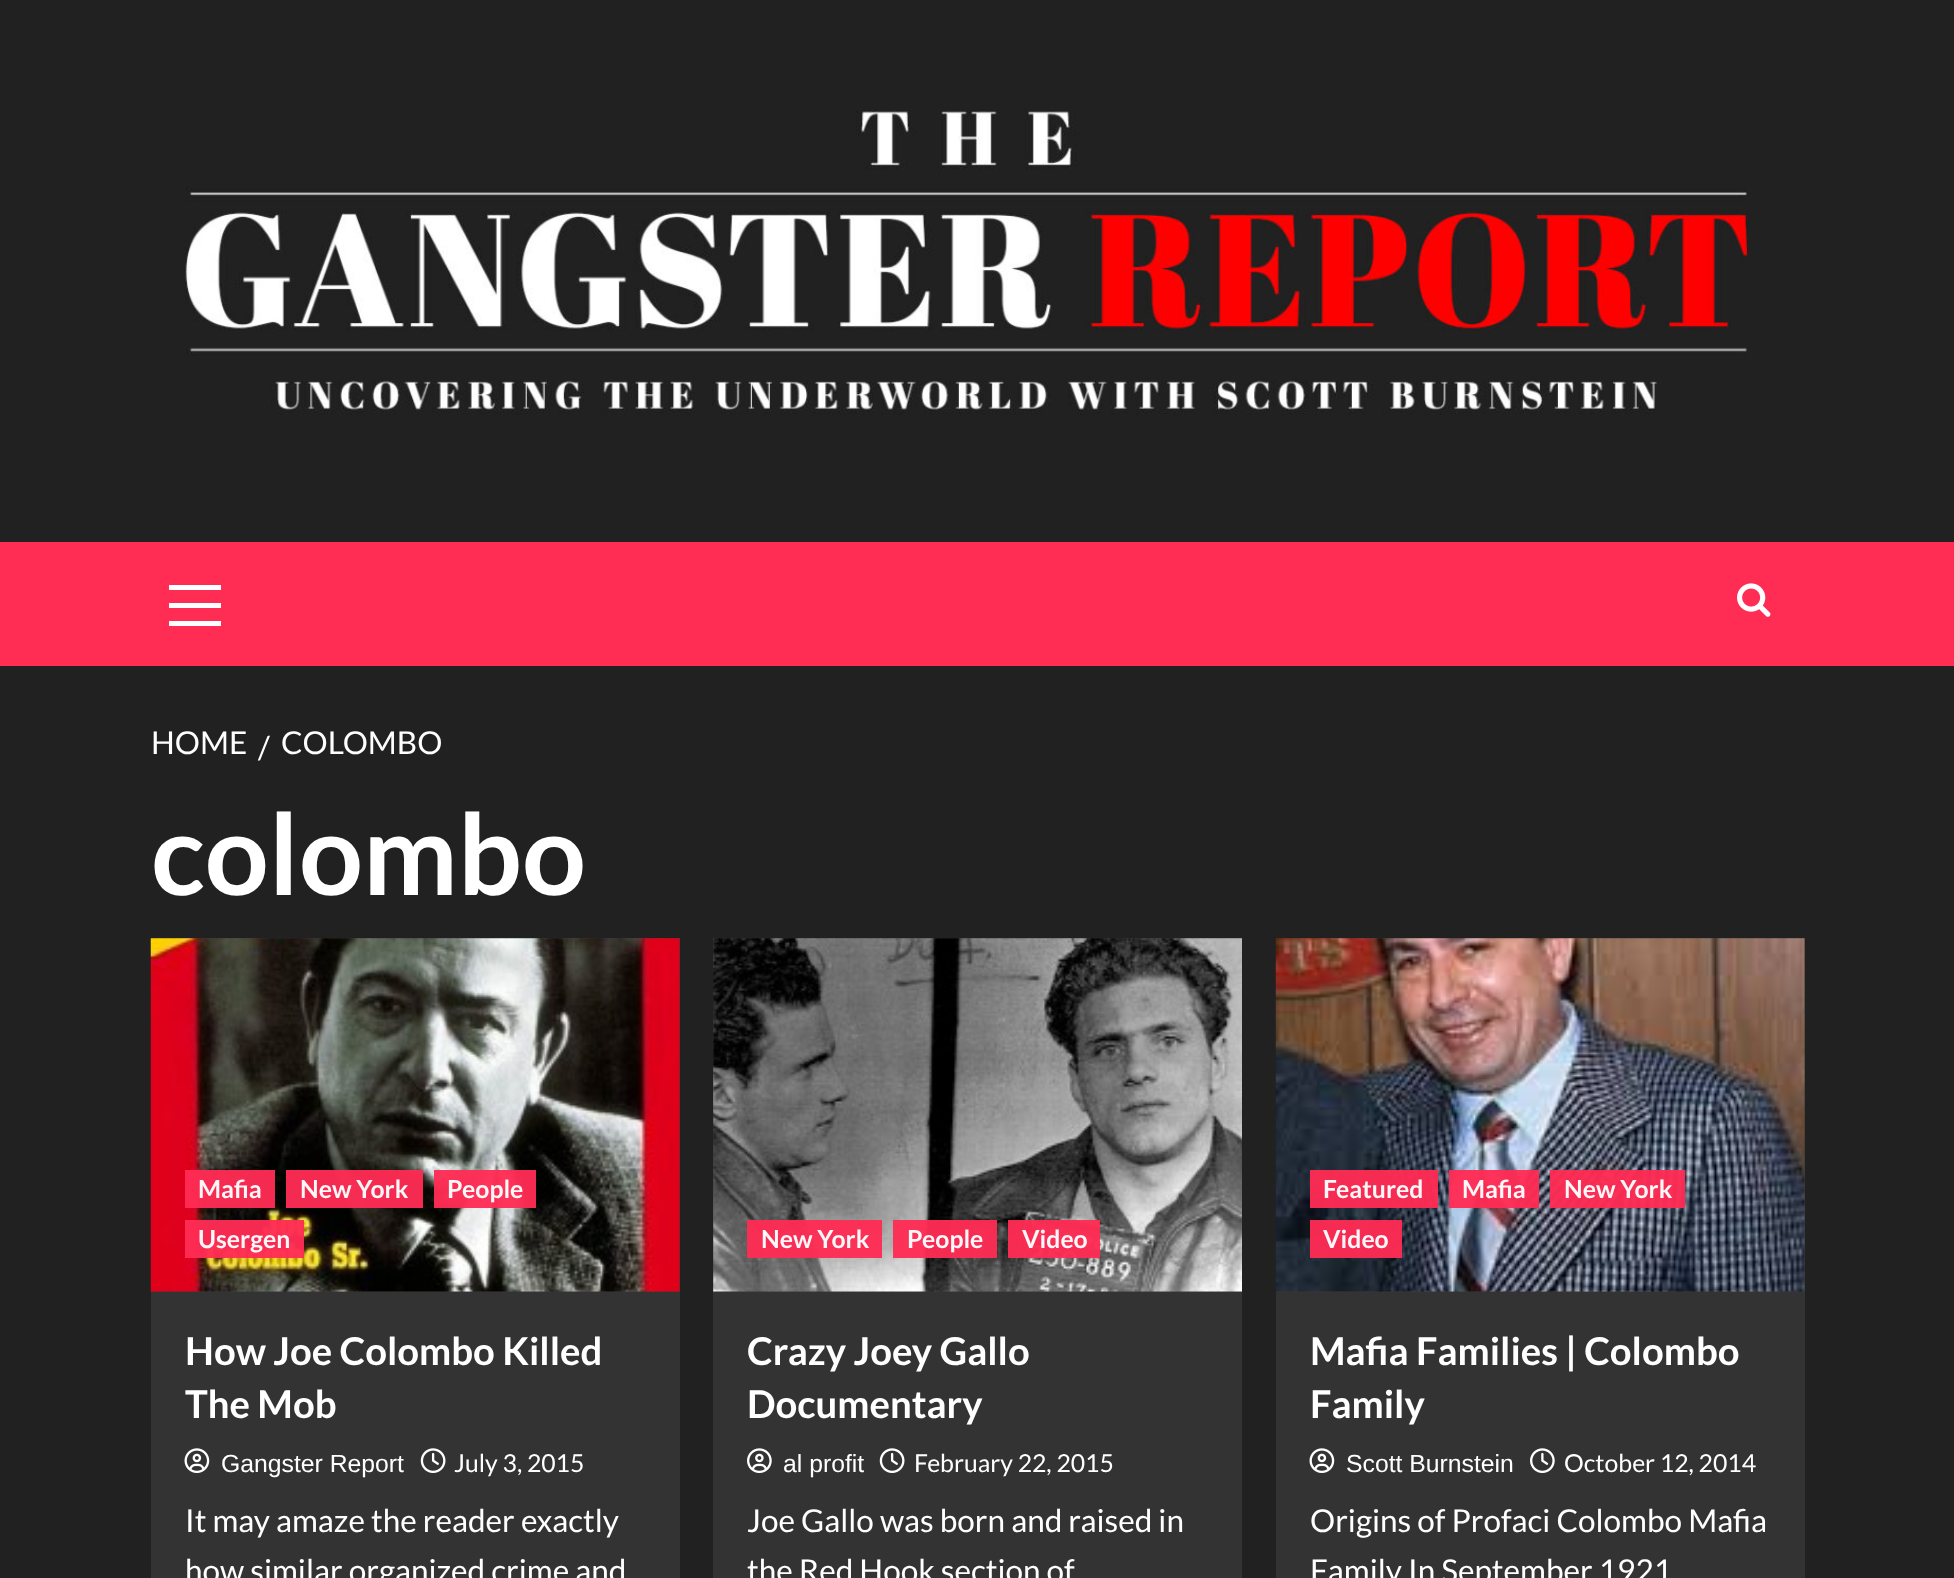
(async () => {
const canvas = document.querySelector("canvas")
canvas.width = 1954
canvas.height = 1578
const c = canvas.getContext("2d")
c.miterLimit = 4
c.fontKerning = "normal"
function T(s,x,y){c.fillText(s,x,y)}
function R(x,y,w,h){c.fillRect(x,y,w,h)}
async function I(src,x,y,w,h){const img=new Image();img.src=src;await img.decode();c.drawImage(img,x,y,w,h)}
c.fillStyle="#212121"
R(0,0,1954,1578)
await I("1.png",185,110,1563,305)
c.fillStyle="#ff2c54"
R(0,542,1954,124)
c.fillStyle="#fff"
R(169,603,52,5)
R(169,585,52,5)
R(169,621,52,5)
await I("2.png",1737,583,34,34)
c.font="31.5px Lato"
T("HOME",151,754)
T("/",258,759)
T("COLOMBO",281,754)
c.font="bold 112.5px Lato"
T("colombo",151,895)
c.fillStyle="#333"
R(151,1292,529,286)
c.fillStyle="#3d3d3d"
R(151,938,529,354)
await I("3.png",150,938,530,354)
c.fillStyle="#ff2c54f5"
R(185,1170,90,38)
c.font="bold 24.75px Lato"
c.fillStyle="#fff7f8"
T("Mafia",198,1198)
c.fillStyle="#ff2c54f5"
R(286,1170,137,38)
c.fillStyle="#fff7f8"
T("New York",300,1198)
c.fillStyle="#ff2c54f5"
R(434,1170,102,38)
c.fillStyle="#fff7f8"
T("People",447,1198)
c.fillStyle="#ff2c54f5"
R(185,1220,119,38)
c.fillStyle="#fff7f8"
T("Usergen",198,1248)
c.font="bold 38.25px Lato"
c.fillStyle="#fff"
T("How Joe Colombo Killed",185,1365)
T("The Mob",185,1418)
await I("4.png",184,1448,26,25)
c.font="24.75px Liberation Sans"
T("Gangster Report",221,1472)
await I("5.png",420,1448,26,25)
c.font="24.75px Lato"
T("July 3, 2015",454,1472)
c.font="31.5px Lato"
T("It may amaze the reader exactly",185,1532)
T("how similar organized crime and",185,1582)
c.fillStyle="#333"
R(713,1292,529,286)
c.fillStyle="#3d3d3d"
R(713,938,529,354)
await I("6.png",713,938,529,354)
c.fillStyle="#ff2c54f5"
R(747,1220,135,38)
c.font="bold 24.75px Lato"
c.fillStyle="#fff7f8"
T("New York",761,1248)
c.fillStyle="#ff2c54f5"
R(893,1220,104,38)
c.fillStyle="#fff7f8"
T("People",907,1248)
c.fillStyle="#ff2c54f5"
R(1008,1220,92,38)
c.fillStyle="#fff7f8"
T("Video",1022,1248)
c.font="bold 38.25px Lato"
c.fillStyle="#fff"
T("Crazy Joey Gallo",747,1365)
T("Documentary",747,1418)
await I("7.png",747,1448,25,25)
c.font="24.75px Liberation Sans"
T("al profit",783,1472)
await I("5.png",879,1448,26,25)
c.font="24.75px Lato"
T("February 22, 2015",914,1472)
c.font="31.5px Lato"
T("Joe Gallo was born and raised in",747,1532)
T("the Red Hook section of",747,1582)
c.fillStyle="#333"
R(1276,1292,529,286)
c.fillStyle="#3d3d3d"
R(1276,938,529,354)
await I("8.png",1275,938,530,354)
c.fillStyle="#ff2c54f5"
R(1310,1170,128,38)
c.font="bold 24.75px Lato"
c.fillStyle="#fff7f8"
T("Featured",1323,1198)
c.fillStyle="#ff2c54f5"
R(1449,1170,90,38)
c.fillStyle="#fff7f8"
T("Mafia",1462,1198)
c.fillStyle="#ff2c54f5"
R(1550,1170,135,38)
c.fillStyle="#fff7f8"
T("New York",1564,1198)
c.fillStyle="#ff2c54f5"
R(1310,1220,92,38)
c.fillStyle="#fff7f8"
T("Video",1323,1248)
c.font="bold 38.25px Lato"
c.fillStyle="#fff"
T("Mafia Families | Colombo",1310,1365)
T("Family",1310,1418)
await I("4.png",1309,1448,26,25)
c.font="24.75px Liberation Sans"
T("Scott Burnstein",1346,1472)
await I("9.png",1530,1448,25,25)
c.font="24.75px Lato"
T("October 12, 2014",1564,1472)
c.font="31.5px Lato"
T("Origins of Profaci Colombo Mafia",1310,1532)
T("Family In September 1921",1310,1582)
})()
